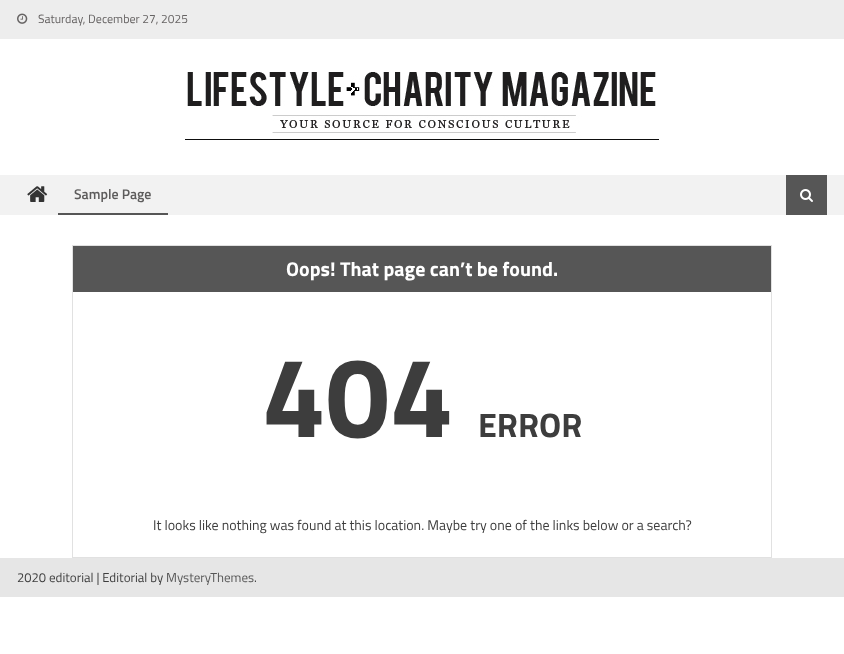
(async () => {
const canvas = document.querySelector("canvas")
canvas.width = 844
canvas.height = 654
const c = canvas.getContext("2d")
c.miterLimit = 4
c.fontKerning = "normal"
function T(s,x,y){c.fillText(s,x,y)}
function R(x,y,w,h){c.fillRect(x,y,w,h)}
async function I(src,x,y,w,h){const img=new Image();img.src=src;await img.decode();c.drawImage(img,x,y,w,h)}
c.fillStyle="#fff"
R(0,0,844,654)
c.fillStyle="#ededed"
R(0,0,844,39)
await I("1.png",17,13,11,11)
c.font="12px Titillium Web"
c.fillStyle="#666363"
T("Saturday, December 27, 2025",38,23)
await I("2.png",185,72,474,68)
c.fillStyle="#f2f2f2"
R(0,175,844,40)
await I("3.png",27,186,21,16)
c.fillStyle="#565656"
R(58,213,110,2)
c.font="600 14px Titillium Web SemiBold"
c.fillStyle="#5d5c5c"
T("Sample Page",74,199)
c.fillStyle="#565656"
R(786,175,41,40)
await I("4.png",800,189,13,13)
c.strokeStyle="#e1e1e1"
c.strokeRect(72.5,245.5,699,312)
R(73,246,698,46)
c.font="bold 20px Titillium Web"
c.fillStyle="#fff"
T("Oops! That page can’t be found.",286,276)
c.font="bold 114px Titillium Web"
c.fillStyle="#3d3d3d"
T("404",262,437)
c.font="bold 34px Titillium Web"
T("ERROR",478,437)
c.font="14px Titillium Web"
T("It looks like nothing was found at this location. Maybe try one of the links below or a search?",153,530)
c.fillStyle="#e6e6e6"
R(0,558,844,39)
c.font="13px Titillium Web"
c.fillStyle="#3d3d3d"
T("2020 editorial | Editorial by",17,582)
c.fillStyle="#565656"
T("MysteryThemes",166,582)
c.fillStyle="#3d3d3d"
T(".",254,582)
})()
